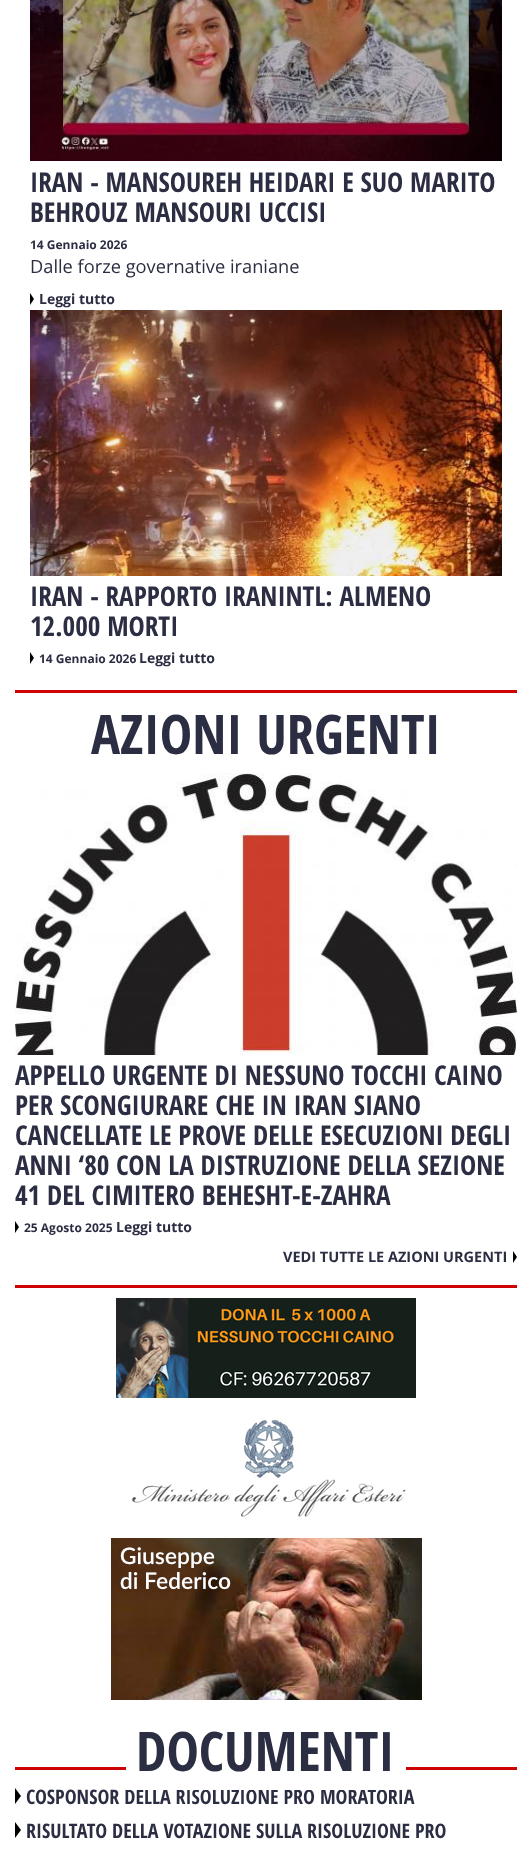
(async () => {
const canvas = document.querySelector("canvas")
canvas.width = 532
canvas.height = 1854
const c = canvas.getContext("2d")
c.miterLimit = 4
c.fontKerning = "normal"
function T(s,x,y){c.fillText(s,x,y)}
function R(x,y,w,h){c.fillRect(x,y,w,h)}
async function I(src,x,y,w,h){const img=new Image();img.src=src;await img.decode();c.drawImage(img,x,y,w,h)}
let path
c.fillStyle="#fff"
R(0,0,532,1854)
await I("1.png",30,0,472,161)
c.font="bold 27.25px Open Sans Condensed"
c.fillStyle="#2b2d42"
T("IRAN - MANSOUREH HEIDARI E SUO MARITO",30,192)
T("BEHROUZ MANSOURI UCCISI",30,222)
c.font="bold 12px Open Sans"
T("14 Gennaio 2026",30,249)
c.font="18.25px Open Sans"
T("Dalle forze governative iraniane",30,273)
c.fillStyle="#000"
path = new Path2D("M30 305v-12l4 6z")
c.fill(path)
c.font="bold 14px Open Sans"
c.fillStyle="#2b2d42"
T("Leggi tutto",39,304)
await I("2.png",30,310,472,266)
c.font="bold 27.25px Open Sans Condensed"
T("IRAN - RAPPORTO IRANINTL: ALMENO",30,606)
T("12.000 MORTI",30,636)
c.font="bold 12px Open Sans"
T("14 Gennaio 2026",39,663)
c.fillStyle="#000"
path = new Path2D("M30 664v-12l4 6z")
c.fill(path)
c.font="bold 14px Open Sans"
c.fillStyle="#2b2d42"
T("Leggi tutto",139,663)
c.fillStyle="#cd0303"
R(15,690,502,3)
c.font="bold 54.5px Open Sans Condensed"
c.fillStyle="#2b2d42"
T("AZIONI URGENTI",91,754)
await I("3.png",15,773,502,282)
c.font="bold 27.25px Open Sans Condensed"
T("APPELLO URGENTE DI NESSUNO TOCCHI CAINO",15,1085)
T("PER SCONGIURARE CHE IN IRAN SIANO",15,1115)
T("CANCELLATE LE PROVE DELLE ESECUZIONI DEGLI",15,1145)
T("ANNI ‘80 CON LA DISTRUZIONE DELLA SEZIONE",15,1175)
T("41 DEL CIMITERO BEHESHT-E-ZAHRA",15,1205)
c.font="bold 12px Open Sans"
T("25 Agosto 2025",24,1232)
c.fillStyle="#000"
path = new Path2D("M15 1233v-12l4 6z")
c.fill(path)
c.font="bold 14px Open Sans"
c.fillStyle="#2b2d42"
T("Leggi tutto",116,1232)
c.font="bold 14.5px Open Sans"
T("VEDI TUTTE LE AZIONI URGENTI",283,1262)
c.fillStyle="#000"
path = new Path2D("M513 1263v-12l4 6z")
c.fill(path)
c.fillStyle="#cd0303"
R(15,1285,502,3)
await I("4.png",116,1298,300,100)
await I("5.png",132,1418,274,99)
await I("6.png",111,1538,311,162)
R(15,1767,502,3)
c.font="bold 20px Open Sans Condensed"
c.fillStyle="#2b2d42"
T("COSPONSOR DELLA RISOLUZIONE PRO MORATORIA",26,1804)
c.fillStyle="#fff"
R(126,1767,280,23)
c.font="bold 54.5px Open Sans Condensed"
c.fillStyle="#2b2d42"
T("DOCUMENTI",136,1771)
c.fillStyle="#000"
path = new Path2D("M15 1804v-16l6 8zm0 34v-16l6 8z")
c.fill(path)
c.font="bold 20px Open Sans Condensed"
c.fillStyle="#2b2d42"
T("RISULTATO DELLA VOTAZIONE SULLA RISOLUZIONE PRO",26,1838)
})()
